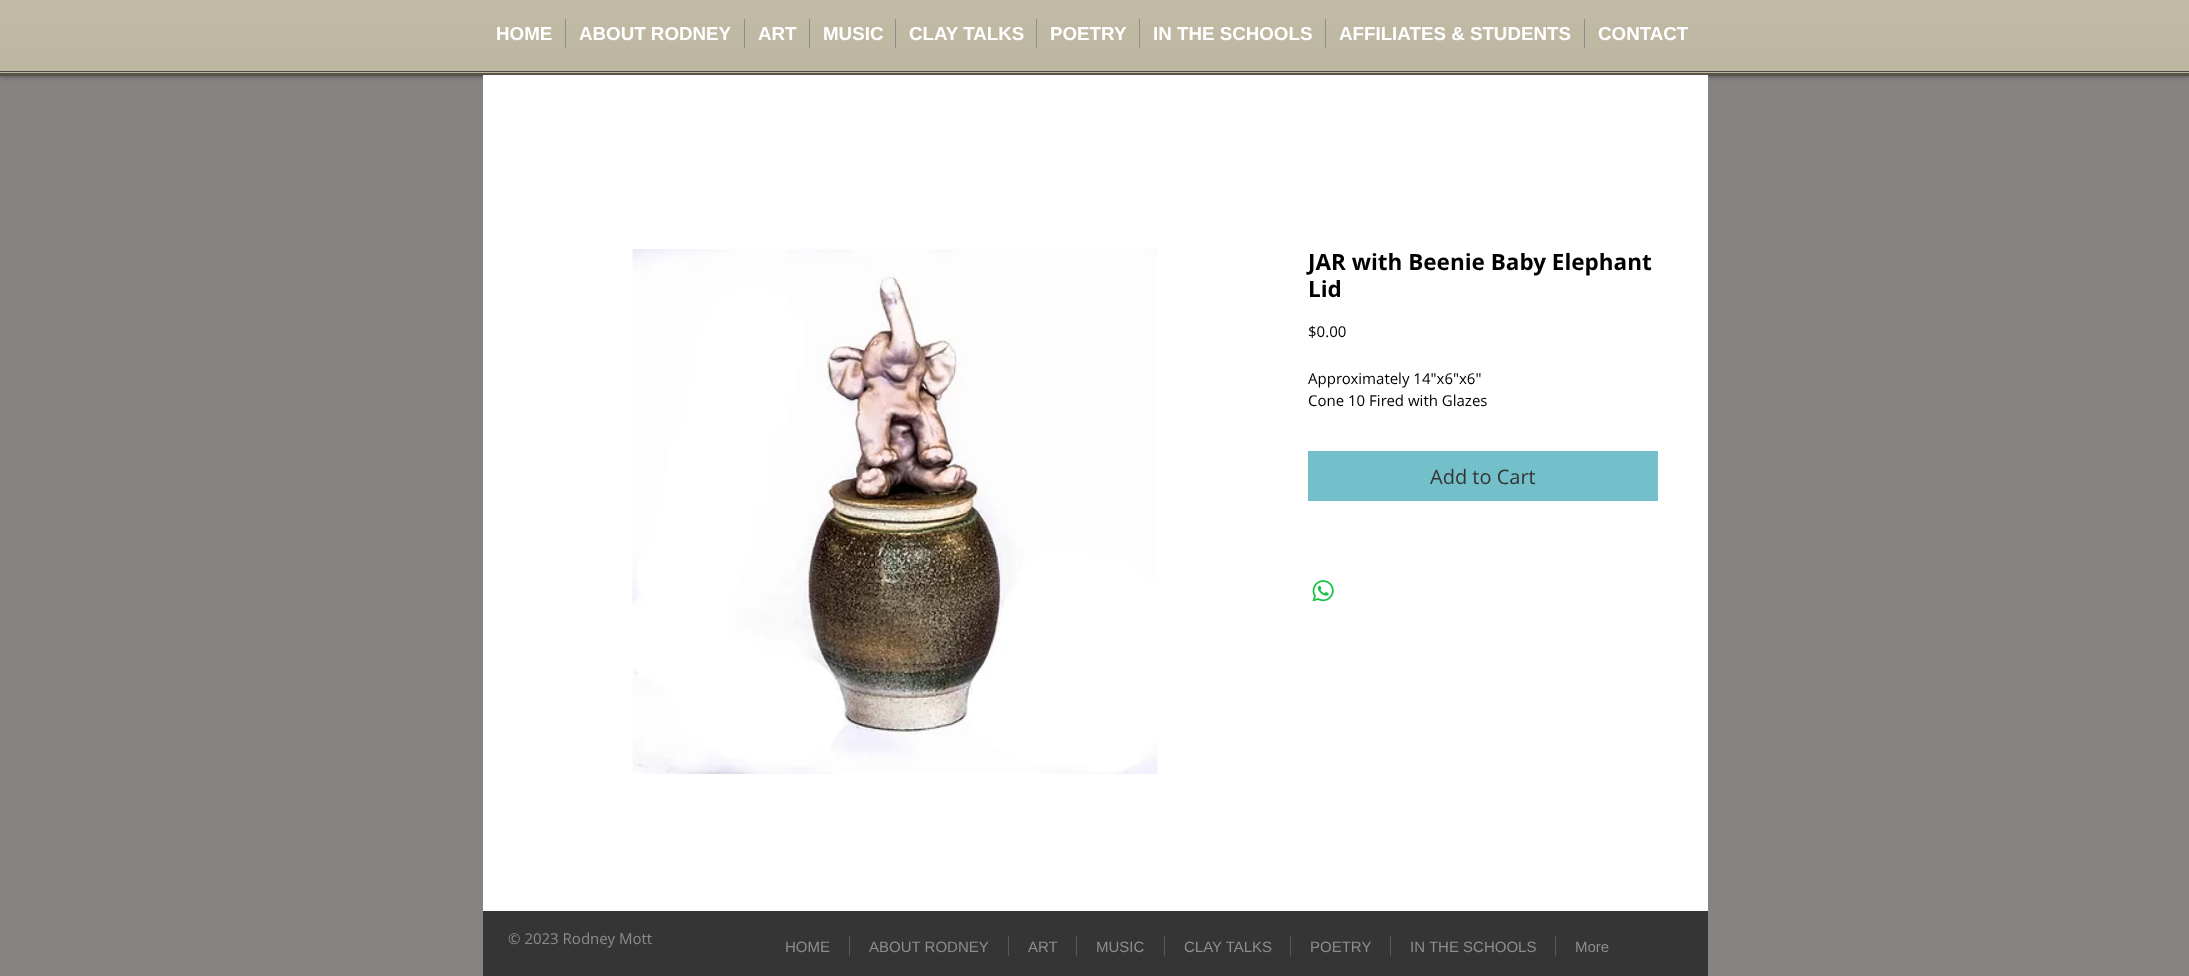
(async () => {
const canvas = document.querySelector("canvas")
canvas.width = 2189
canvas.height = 976
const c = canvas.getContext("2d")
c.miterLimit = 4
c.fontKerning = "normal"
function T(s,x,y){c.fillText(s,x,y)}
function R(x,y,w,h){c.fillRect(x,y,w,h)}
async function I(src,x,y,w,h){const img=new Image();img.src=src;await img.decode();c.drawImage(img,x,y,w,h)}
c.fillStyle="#868381"
R(0,0,2189,976)
c.fillStyle="#00000099"
c.filter="blur(3px)"
c.beginPath()
c.rect(0,-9,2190,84)
c.fill()
c.filter="none"
c.fillStyle="#b3ab91"
R(0,0,2189,73)
await I("1.png",0,0,2189,73)
c.fillStyle="#4c4940"
R(0,71,2189,1)
c.fillStyle="#575348"
R(0,73,2189,3)
c.font="bold 18.75px Liberation Sans"
c.fillStyle="#fff"
T("HOME",496,40)
c.fillStyle="#8d8d8d"
R(565,19,1,29)
c.fillStyle="#fff"
T("ABOUT RODNEY",579,40)
c.fillStyle="#8d8d8d"
R(744,19,1,29)
c.fillStyle="#fff"
T("ART",758,40)
c.fillStyle="#8d8d8d"
R(809,19,1,29)
c.fillStyle="#fff"
T("MUSIC",823,40)
c.fillStyle="#8d8d8d"
R(895,19,1,29)
c.fillStyle="#fff"
T("CLAY TALKS",909,40)
c.fillStyle="#8d8d8d"
R(1036,19,1,29)
c.fillStyle="#fff"
T("POETRY",1050,40)
c.fillStyle="#8d8d8d"
R(1139,19,1,29)
c.fillStyle="#fff"
T("IN THE SCHOOLS",1153,40)
c.fillStyle="#8d8d8d"
R(1325,19,1,29)
c.fillStyle="#fff"
T("AFFILIATES & STUDENTS",1339,40)
c.fillStyle="#8d8d8d"
R(1584,19,1,29)
c.fillStyle="#fff"
T("CONTACT",1598,40)
R(483,75,1225,836)
await I("2.png",632,249,526,525)
c.font="bold 22.5px Open Sans"
c.fillStyle="#000"
T("JAR with Beenie Baby Elephant",1308,270)
T("Lid",1308,297)
c.font="15px Open Sans"
T("$0.00",1308,337)
T("Approximately 14\"x6\"x6\"",1308,384)
T("Cone 10 Fired with Glazes",1308,406)
c.fillStyle="#73c0ca"
R(1308,451,350,50)
c.font="20px Open Sans"
c.fillStyle="#353535"
T("Add to Cart",1430,484)
await I("3.png",1312,580,22,22)
R(483,911,1225,65)
c.font="15px Open Sans"
c.fillStyle="#8d8d8d"
T("© 2023 Rodney Mott",508,944)
c.font="15px Liberation Sans"
T("HOME",785,952)
c.fillStyle="#585858"
R(849,936,1,20)
c.fillStyle="#8d8d8d"
T("ABOUT RODNEY",869,952)
c.fillStyle="#585858"
R(1008,936,1,20)
c.fillStyle="#8d8d8d"
T("ART",1028,952)
c.fillStyle="#585858"
R(1076,936,1,20)
c.fillStyle="#8d8d8d"
T("MUSIC",1096,952)
c.fillStyle="#585858"
R(1164,936,1,20)
c.fillStyle="#8d8d8d"
T("CLAY TALKS",1184,952)
c.fillStyle="#585858"
R(1290,936,1,20)
c.fillStyle="#8d8d8d"
T("POETRY",1310,952)
c.fillStyle="#585858"
R(1390,936,1,20)
c.fillStyle="#8d8d8d"
T("IN THE SCHOOLS",1410,952)
c.fillStyle="#585858"
R(1555,936,1,20)
c.fillStyle="#8d8d8d"
T("More",1575,952)
})()
